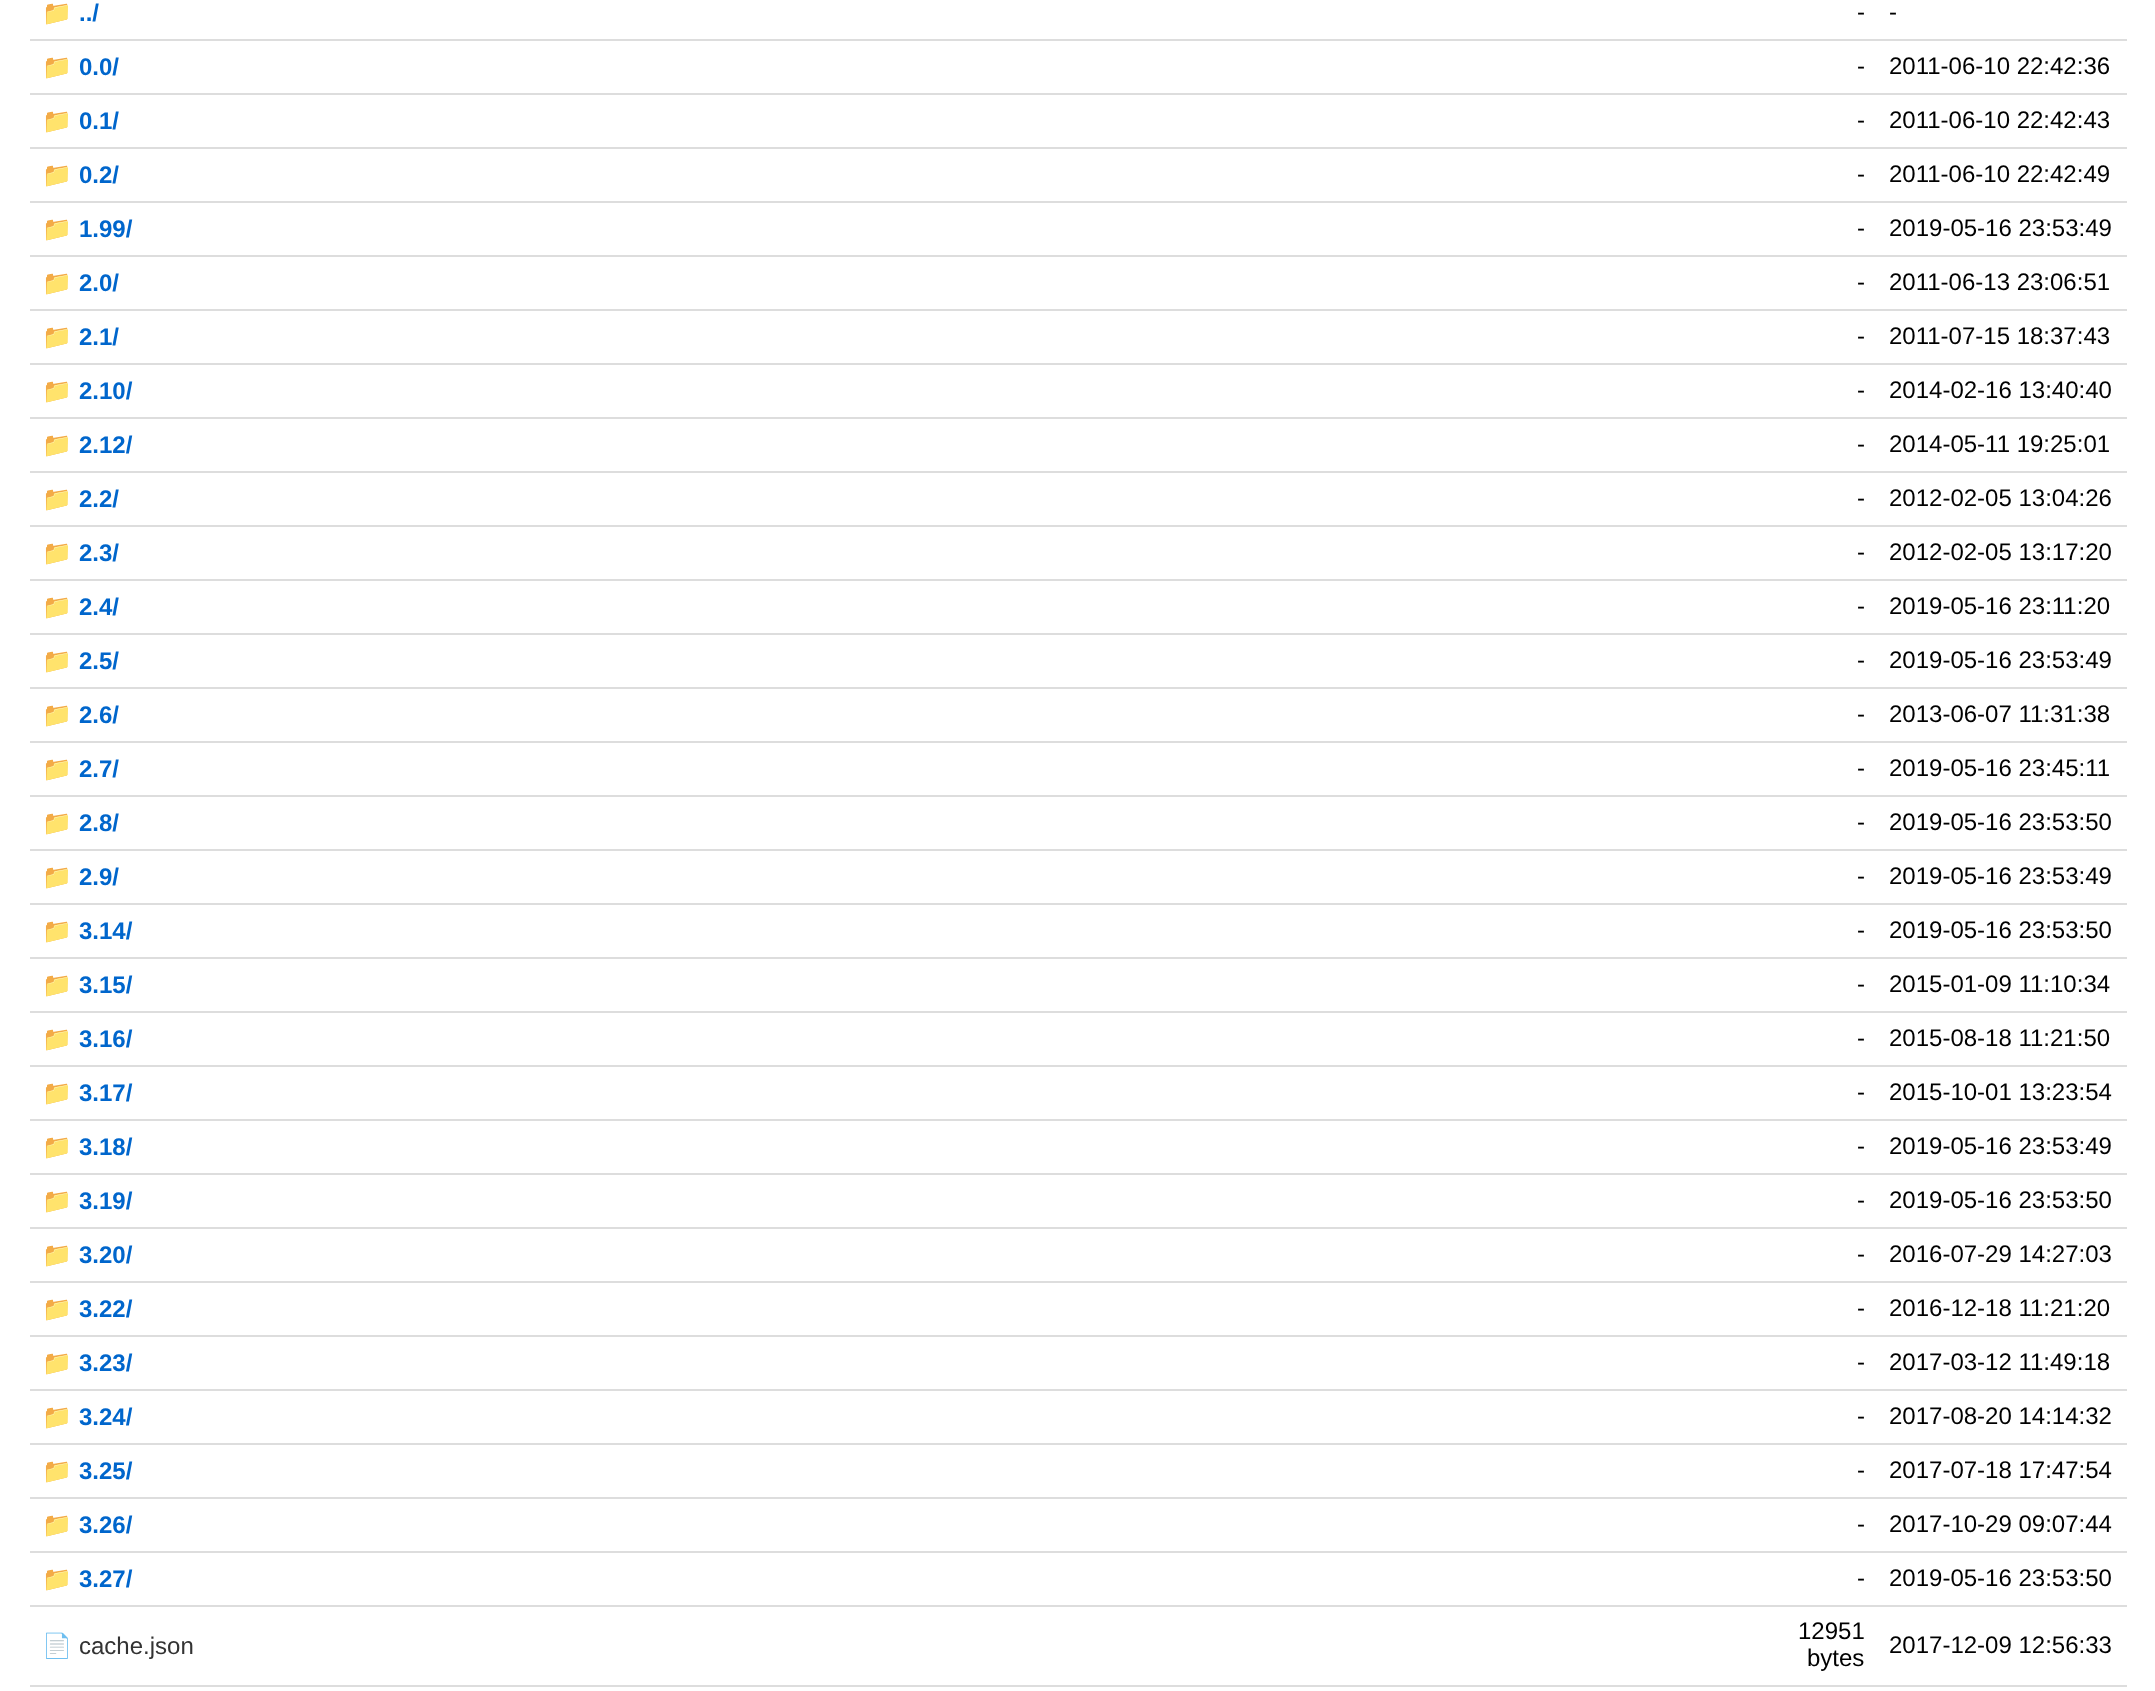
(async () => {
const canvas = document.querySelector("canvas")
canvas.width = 2155
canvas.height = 1691
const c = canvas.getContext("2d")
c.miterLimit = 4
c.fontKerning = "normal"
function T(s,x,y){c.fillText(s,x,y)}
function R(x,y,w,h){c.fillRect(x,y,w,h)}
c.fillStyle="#fff"
R(0,0,2155,1691)
c.font="bold 24px Noto Color Emoji"
c.fillStyle="#06c"
T("📁",42,21)
c.font="bold 24px Liberation Sans"
T("../",79,21)
c.font="24px Liberation Sans"
c.fillStyle="#000"
T("-",1857,20)
c.fillStyle="#ddd"
R(30,39,2097,2)
c.fillStyle="#000"
T("-",1889,20)
c.font="bold 24px Noto Color Emoji"
c.fillStyle="#06c"
T("📁",42,75)
c.font="bold 24px Liberation Sans"
T("0.0/",79,75)
c.font="24px Liberation Sans"
c.fillStyle="#000"
T("-",1857,74)
c.fillStyle="#ddd"
R(30,93,2097,2)
c.fillStyle="#000"
T("2011-06-10 22:42:36",1889,74)
c.font="bold 24px Noto Color Emoji"
c.fillStyle="#06c"
T("📁",42,129)
c.font="bold 24px Liberation Sans"
T("0.1/",79,129)
c.font="24px Liberation Sans"
c.fillStyle="#000"
T("-",1857,128)
c.fillStyle="#ddd"
R(30,147,2097,2)
c.fillStyle="#000"
T("2011-06-10 22:42:43",1889,128)
c.font="bold 24px Noto Color Emoji"
c.fillStyle="#06c"
T("📁",42,183)
c.font="bold 24px Liberation Sans"
T("0.2/",79,183)
c.font="24px Liberation Sans"
c.fillStyle="#000"
T("-",1857,182)
c.fillStyle="#ddd"
R(30,201,2097,2)
c.fillStyle="#000"
T("2011-06-10 22:42:49",1889,182)
c.font="bold 24px Noto Color Emoji"
c.fillStyle="#06c"
T("📁",42,237)
c.font="bold 24px Liberation Sans"
T("1.99/",79,237)
c.font="24px Liberation Sans"
c.fillStyle="#000"
T("-",1857,236)
c.fillStyle="#ddd"
R(30,255,2097,2)
c.fillStyle="#000"
T("2019-05-16 23:53:49",1889,236)
c.font="bold 24px Noto Color Emoji"
c.fillStyle="#06c"
T("📁",42,291)
c.font="bold 24px Liberation Sans"
T("2.0/",79,291)
c.font="24px Liberation Sans"
c.fillStyle="#000"
T("-",1857,290)
c.fillStyle="#ddd"
R(30,309,2097,2)
c.fillStyle="#000"
T("2011-06-13 23:06:51",1889,290)
c.font="bold 24px Noto Color Emoji"
c.fillStyle="#06c"
T("📁",42,345)
c.font="bold 24px Liberation Sans"
T("2.1/",79,345)
c.font="24px Liberation Sans"
c.fillStyle="#000"
T("-",1857,344)
c.fillStyle="#ddd"
R(30,363,2097,2)
c.fillStyle="#000"
T("2011-07-15 18:37:43",1889,344)
c.font="bold 24px Noto Color Emoji"
c.fillStyle="#06c"
T("📁",42,399)
c.font="bold 24px Liberation Sans"
T("2.10/",79,399)
c.font="24px Liberation Sans"
c.fillStyle="#000"
T("-",1857,398)
c.fillStyle="#ddd"
R(30,417,2097,2)
c.fillStyle="#000"
T("2014-02-16 13:40:40",1889,398)
c.font="bold 24px Noto Color Emoji"
c.fillStyle="#06c"
T("📁",42,453)
c.font="bold 24px Liberation Sans"
T("2.12/",79,453)
c.font="24px Liberation Sans"
c.fillStyle="#000"
T("-",1857,452)
c.fillStyle="#ddd"
R(30,471,2097,2)
c.fillStyle="#000"
T("2014-05-11 19:25:01",1889,452)
c.font="bold 24px Noto Color Emoji"
c.fillStyle="#06c"
T("📁",42,507)
c.font="bold 24px Liberation Sans"
T("2.2/",79,507)
c.font="24px Liberation Sans"
c.fillStyle="#000"
T("-",1857,506)
c.fillStyle="#ddd"
R(30,525,2097,2)
c.fillStyle="#000"
T("2012-02-05 13:04:26",1889,506)
c.font="bold 24px Noto Color Emoji"
c.fillStyle="#06c"
T("📁",42,561)
c.font="bold 24px Liberation Sans"
T("2.3/",79,561)
c.font="24px Liberation Sans"
c.fillStyle="#000"
T("-",1857,560)
c.fillStyle="#ddd"
R(30,579,2097,2)
c.fillStyle="#000"
T("2012-02-05 13:17:20",1889,560)
c.font="bold 24px Noto Color Emoji"
c.fillStyle="#06c"
T("📁",42,615)
c.font="bold 24px Liberation Sans"
T("2.4/",79,615)
c.font="24px Liberation Sans"
c.fillStyle="#000"
T("-",1857,614)
c.fillStyle="#ddd"
R(30,633,2097,2)
c.fillStyle="#000"
T("2019-05-16 23:11:20",1889,614)
c.font="bold 24px Noto Color Emoji"
c.fillStyle="#06c"
T("📁",42,669)
c.font="bold 24px Liberation Sans"
T("2.5/",79,669)
c.font="24px Liberation Sans"
c.fillStyle="#000"
T("-",1857,668)
c.fillStyle="#ddd"
R(30,687,2097,2)
c.fillStyle="#000"
T("2019-05-16 23:53:49",1889,668)
c.font="bold 24px Noto Color Emoji"
c.fillStyle="#06c"
T("📁",42,723)
c.font="bold 24px Liberation Sans"
T("2.6/",79,723)
c.font="24px Liberation Sans"
c.fillStyle="#000"
T("-",1857,722)
c.fillStyle="#ddd"
R(30,741,2097,2)
c.fillStyle="#000"
T("2013-06-07 11:31:38",1889,722)
c.font="bold 24px Noto Color Emoji"
c.fillStyle="#06c"
T("📁",42,777)
c.font="bold 24px Liberation Sans"
T("2.7/",79,777)
c.font="24px Liberation Sans"
c.fillStyle="#000"
T("-",1857,776)
c.fillStyle="#ddd"
R(30,795,2097,2)
c.fillStyle="#000"
T("2019-05-16 23:45:11",1889,776)
c.font="bold 24px Noto Color Emoji"
c.fillStyle="#06c"
T("📁",42,831)
c.font="bold 24px Liberation Sans"
T("2.8/",79,831)
c.font="24px Liberation Sans"
c.fillStyle="#000"
T("-",1857,830)
c.fillStyle="#ddd"
R(30,849,2097,2)
c.fillStyle="#000"
T("2019-05-16 23:53:50",1889,830)
c.font="bold 24px Noto Color Emoji"
c.fillStyle="#06c"
T("📁",42,885)
c.font="bold 24px Liberation Sans"
T("2.9/",79,885)
c.font="24px Liberation Sans"
c.fillStyle="#000"
T("-",1857,884)
c.fillStyle="#ddd"
R(30,903,2097,2)
c.fillStyle="#000"
T("2019-05-16 23:53:49",1889,884)
c.font="bold 24px Noto Color Emoji"
c.fillStyle="#06c"
T("📁",42,939)
c.font="bold 24px Liberation Sans"
T("3.14/",79,939)
c.font="24px Liberation Sans"
c.fillStyle="#000"
T("-",1857,938)
c.fillStyle="#ddd"
R(30,957,2097,2)
c.fillStyle="#000"
T("2019-05-16 23:53:50",1889,938)
c.font="bold 24px Noto Color Emoji"
c.fillStyle="#06c"
T("📁",42,993)
c.font="bold 24px Liberation Sans"
T("3.15/",79,993)
c.font="24px Liberation Sans"
c.fillStyle="#000"
T("-",1857,992)
c.fillStyle="#ddd"
R(30,1011,2097,2)
c.fillStyle="#000"
T("2015-01-09 11:10:34",1889,992)
c.font="bold 24px Noto Color Emoji"
c.fillStyle="#06c"
T("📁",42,1047)
c.font="bold 24px Liberation Sans"
T("3.16/",79,1047)
c.font="24px Liberation Sans"
c.fillStyle="#000"
T("-",1857,1046)
c.fillStyle="#ddd"
R(30,1065,2097,2)
c.fillStyle="#000"
T("2015-08-18 11:21:50",1889,1046)
c.font="bold 24px Noto Color Emoji"
c.fillStyle="#06c"
T("📁",42,1101)
c.font="bold 24px Liberation Sans"
T("3.17/",79,1101)
c.font="24px Liberation Sans"
c.fillStyle="#000"
T("-",1857,1100)
c.fillStyle="#ddd"
R(30,1119,2097,2)
c.fillStyle="#000"
T("2015-10-01 13:23:54",1889,1100)
c.font="bold 24px Noto Color Emoji"
c.fillStyle="#06c"
T("📁",42,1155)
c.font="bold 24px Liberation Sans"
T("3.18/",79,1155)
c.font="24px Liberation Sans"
c.fillStyle="#000"
T("-",1857,1154)
c.fillStyle="#ddd"
R(30,1173,2097,2)
c.fillStyle="#000"
T("2019-05-16 23:53:49",1889,1154)
c.font="bold 24px Noto Color Emoji"
c.fillStyle="#06c"
T("📁",42,1209)
c.font="bold 24px Liberation Sans"
T("3.19/",79,1209)
c.font="24px Liberation Sans"
c.fillStyle="#000"
T("-",1857,1208)
c.fillStyle="#ddd"
R(30,1227,2097,2)
c.fillStyle="#000"
T("2019-05-16 23:53:50",1889,1208)
c.font="bold 24px Noto Color Emoji"
c.fillStyle="#06c"
T("📁",42,1263)
c.font="bold 24px Liberation Sans"
T("3.20/",79,1263)
c.font="24px Liberation Sans"
c.fillStyle="#000"
T("-",1857,1262)
c.fillStyle="#ddd"
R(30,1281,2097,2)
c.fillStyle="#000"
T("2016-07-29 14:27:03",1889,1262)
c.font="bold 24px Noto Color Emoji"
c.fillStyle="#06c"
T("📁",42,1317)
c.font="bold 24px Liberation Sans"
T("3.22/",79,1317)
c.font="24px Liberation Sans"
c.fillStyle="#000"
T("-",1857,1316)
c.fillStyle="#ddd"
R(30,1335,2097,2)
c.fillStyle="#000"
T("2016-12-18 11:21:20",1889,1316)
c.font="bold 24px Noto Color Emoji"
c.fillStyle="#06c"
T("📁",42,1371)
c.font="bold 24px Liberation Sans"
T("3.23/",79,1371)
c.font="24px Liberation Sans"
c.fillStyle="#000"
T("-",1857,1370)
c.fillStyle="#ddd"
R(30,1389,2097,2)
c.fillStyle="#000"
T("2017-03-12 11:49:18",1889,1370)
c.font="bold 24px Noto Color Emoji"
c.fillStyle="#06c"
T("📁",42,1425)
c.font="bold 24px Liberation Sans"
T("3.24/",79,1425)
c.font="24px Liberation Sans"
c.fillStyle="#000"
T("-",1857,1424)
c.fillStyle="#ddd"
R(30,1443,2097,2)
c.fillStyle="#000"
T("2017-08-20 14:14:32",1889,1424)
c.font="bold 24px Noto Color Emoji"
c.fillStyle="#06c"
T("📁",42,1479)
c.font="bold 24px Liberation Sans"
T("3.25/",79,1479)
c.font="24px Liberation Sans"
c.fillStyle="#000"
T("-",1857,1478)
c.fillStyle="#ddd"
R(30,1497,2097,2)
c.fillStyle="#000"
T("2017-07-18 17:47:54",1889,1478)
c.font="bold 24px Noto Color Emoji"
c.fillStyle="#06c"
T("📁",42,1533)
c.font="bold 24px Liberation Sans"
T("3.26/",79,1533)
c.font="24px Liberation Sans"
c.fillStyle="#000"
T("-",1857,1532)
c.fillStyle="#ddd"
R(30,1551,2097,2)
c.fillStyle="#000"
T("2017-10-29 09:07:44",1889,1532)
c.font="bold 24px Noto Color Emoji"
c.fillStyle="#06c"
T("📁",42,1587)
c.font="bold 24px Liberation Sans"
T("3.27/",79,1587)
c.font="24px Liberation Sans"
c.fillStyle="#000"
T("-",1857,1586)
c.fillStyle="#ddd"
R(30,1605,2097,2)
c.fillStyle="#000"
T("2019-05-16 23:53:50",1889,1586)
c.font="24px Noto Color Emoji"
c.fillStyle="#333"
T("📄",42,1654)
c.font="24px Liberation Sans"
T("cache.json",79,1654)
c.fillStyle="#000"
T("12951",1798,1639)
T("bytes",1807,1666)
c.fillStyle="#ddd"
R(30,1685,2097,2)
c.fillStyle="#000"
T("2017-12-09 12:56:33",1889,1653)
})()
